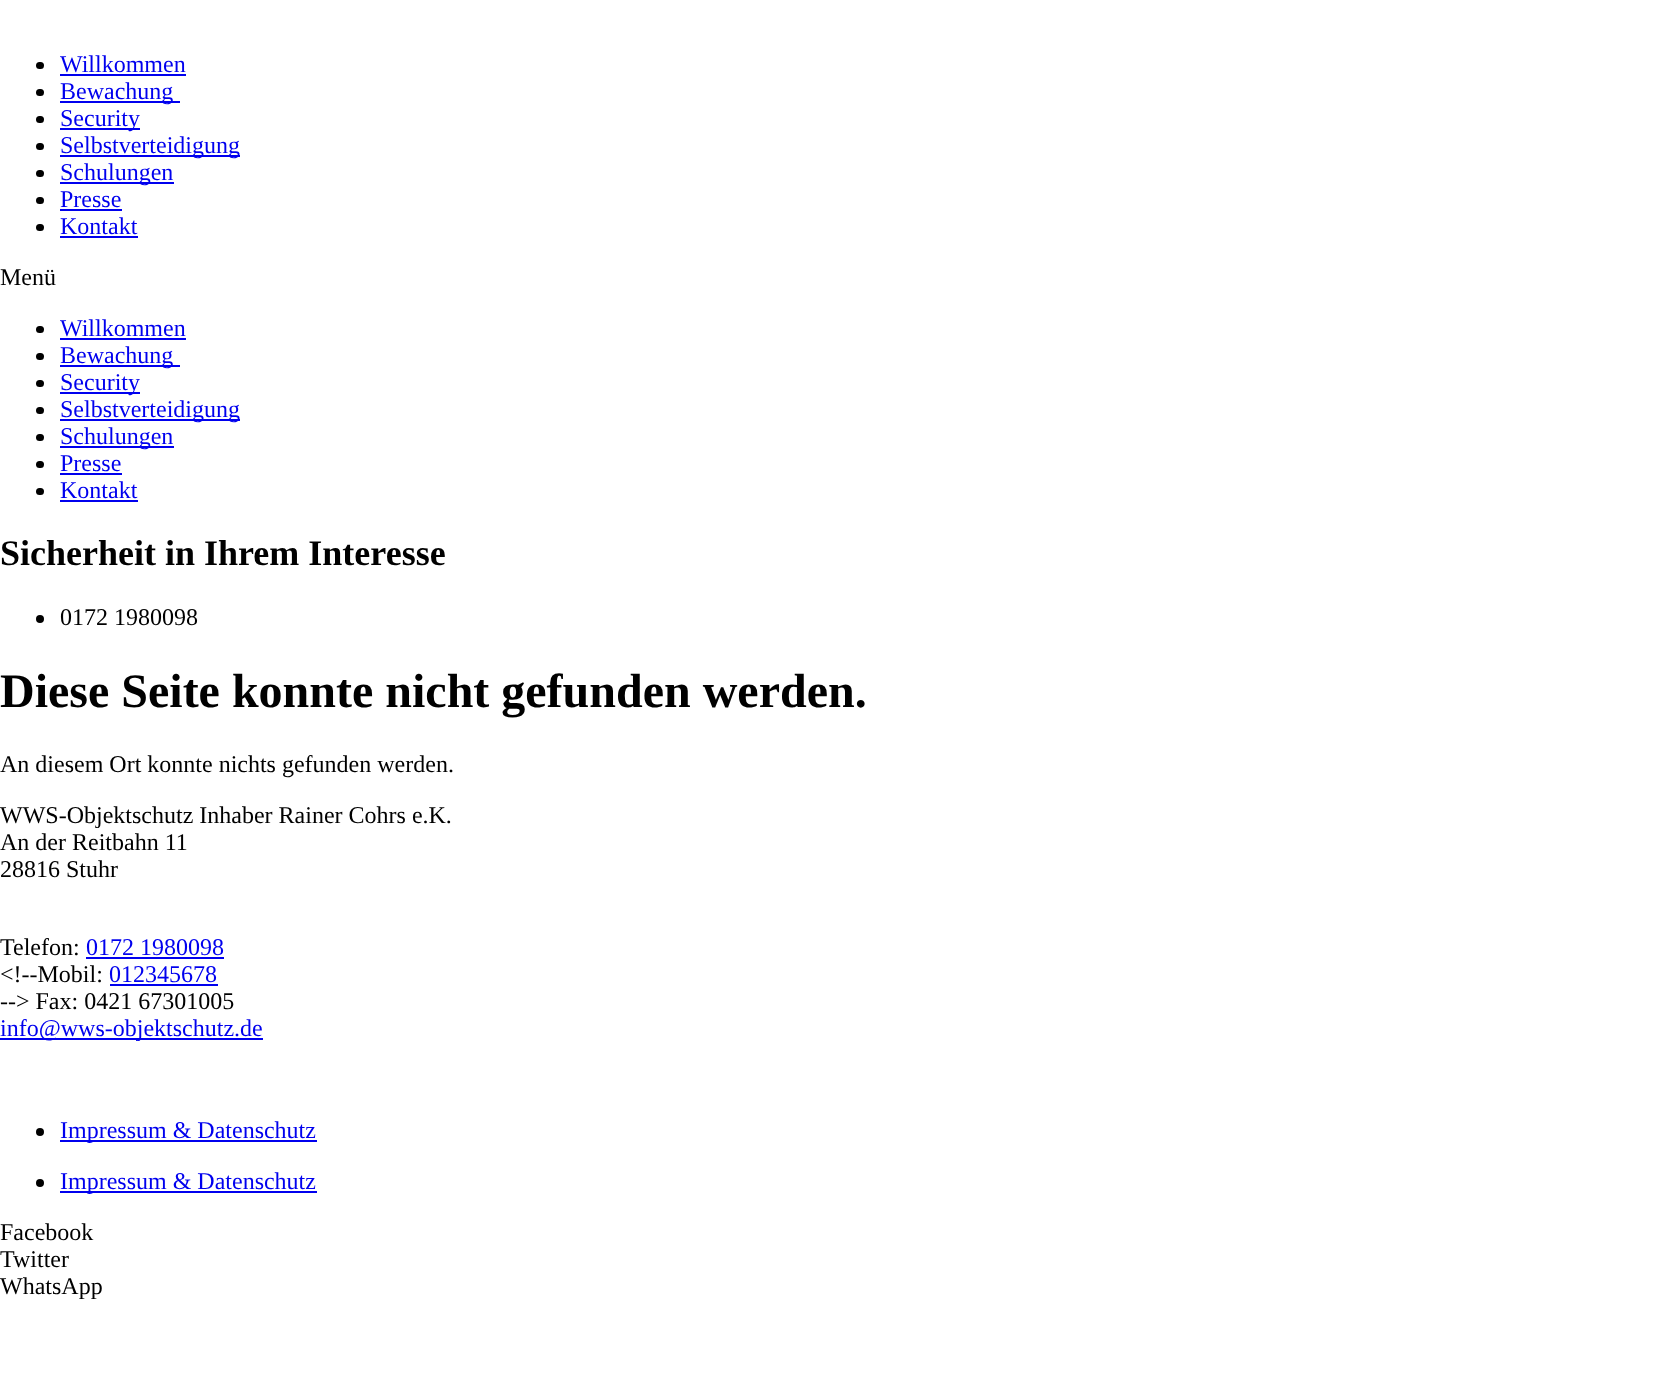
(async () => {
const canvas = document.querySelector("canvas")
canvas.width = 1669
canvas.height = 1390
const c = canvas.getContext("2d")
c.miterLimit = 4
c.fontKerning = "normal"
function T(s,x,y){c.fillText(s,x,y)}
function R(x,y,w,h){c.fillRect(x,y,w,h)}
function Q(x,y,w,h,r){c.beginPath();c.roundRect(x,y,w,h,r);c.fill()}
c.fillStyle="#fff"
R(0,0,1669,1390)
c.fillStyle="#000"
Q(36,62,8,7,3.5)
c.font="24px Liberation Serif"
c.fillStyle="#00e"
T("Willkommen",60,72)
R(60,74,126,2)
c.fillStyle="#000"
Q(36,89,8,7,3.5)
c.fillStyle="#00e"
R(60,101,120,2)
T("Bewachung",60,99)
c.fillStyle="#000"
Q(36,116,8,7,3.5)
c.fillStyle="#00e"
R(60,128,80,2)
T("Security",60,126)
c.fillStyle="#000"
Q(36,143,8,7,3.5)
c.fillStyle="#00e"
R(60,155,180,2)
T("Selbstverteidigung",60,153)
c.fillStyle="#000"
Q(36,170,8,7,3.5)
c.fillStyle="#00e"
R(60,182,114,2)
T("Schulungen",60,180)
c.fillStyle="#000"
Q(36,197,8,7,3.5)
c.fillStyle="#00e"
T("Presse",60,207)
R(60,209,62,2)
c.fillStyle="#000"
Q(36,224,8,7,3.5)
c.fillStyle="#00e"
T("Kontakt",60,234)
R(60,236,78,2)
c.fillStyle="#000"
T("Menü",0,285)
Q(36,326,8,7,3.5)
c.fillStyle="#00e"
T("Willkommen",60,336)
R(60,338,126,2)
c.fillStyle="#000"
Q(36,353,8,7,3.5)
c.fillStyle="#00e"
R(60,365,120,2)
T("Bewachung",60,363)
c.fillStyle="#000"
Q(36,380,8,7,3.5)
c.fillStyle="#00e"
R(60,392,80,2)
T("Security",60,390)
c.fillStyle="#000"
Q(36,407,8,7,3.5)
c.fillStyle="#00e"
R(60,419,180,2)
T("Selbstverteidigung",60,417)
c.fillStyle="#000"
Q(36,434,8,7,3.5)
c.fillStyle="#00e"
R(60,446,114,2)
T("Schulungen",60,444)
c.fillStyle="#000"
Q(36,461,8,7,3.5)
c.fillStyle="#00e"
T("Presse",60,471)
R(60,473,62,2)
c.fillStyle="#000"
Q(36,488,8,7,3.5)
c.fillStyle="#00e"
T("Kontakt",60,498)
R(60,500,78,2)
c.font="bold 36px Liberation Serif"
c.fillStyle="#000"
T("Sicherheit in Ihrem Interesse",0,565)
c.beginPath()
c.arc(40,619,4,0,7)
c.fill()
c.font="24px Liberation Serif"
T("0172 1980098",60,625)
c.font="bold 48px Liberation Serif"
T("Diese Seite konnte nicht gefunden werden.",0,707)
c.font="24px Liberation Serif"
T("An diesem Ort konnte nichts gefunden werden.",0,772)
T("WWS-Objektschutz Inhaber Rainer Cohrs e.K.",0,823)
T("An der Reitbahn 11",0,850)
T("28816 Stuhr",0,877)
T("Telefon:",0,955)
c.fillStyle="#00e"
T("0172 1980098",86,955)
R(86,957,138,2)
c.fillStyle="#000"
T("<\!--Mobil:",0,982)
c.fillStyle="#00e"
T("012345678",109,982)
R(110,984,108,2)
c.fillStyle="#000"
T("--> Fax: 0421 67301005",0,1009)
c.fillStyle="#00e"
R(0,1038,263,2)
T("info@wws-objektschutz.de",0,1036)
c.fillStyle="#000"
c.beginPath()
c.arc(40,1132,4,0,7)
c.fill()
c.fillStyle="#00e"
R(60,1140,257,2)
T("Impressum & Datenschutz",60,1138)
c.fillStyle="#000"
c.beginPath()
c.arc(40,1183,4,0,7)
c.fill()
c.fillStyle="#00e"
R(60,1191,257,2)
T("Impressum & Datenschutz",60,1189)
c.fillStyle="#000"
T("Facebook",0,1240)
T("Twitter",0,1267)
T("WhatsApp",0,1294)
})()
